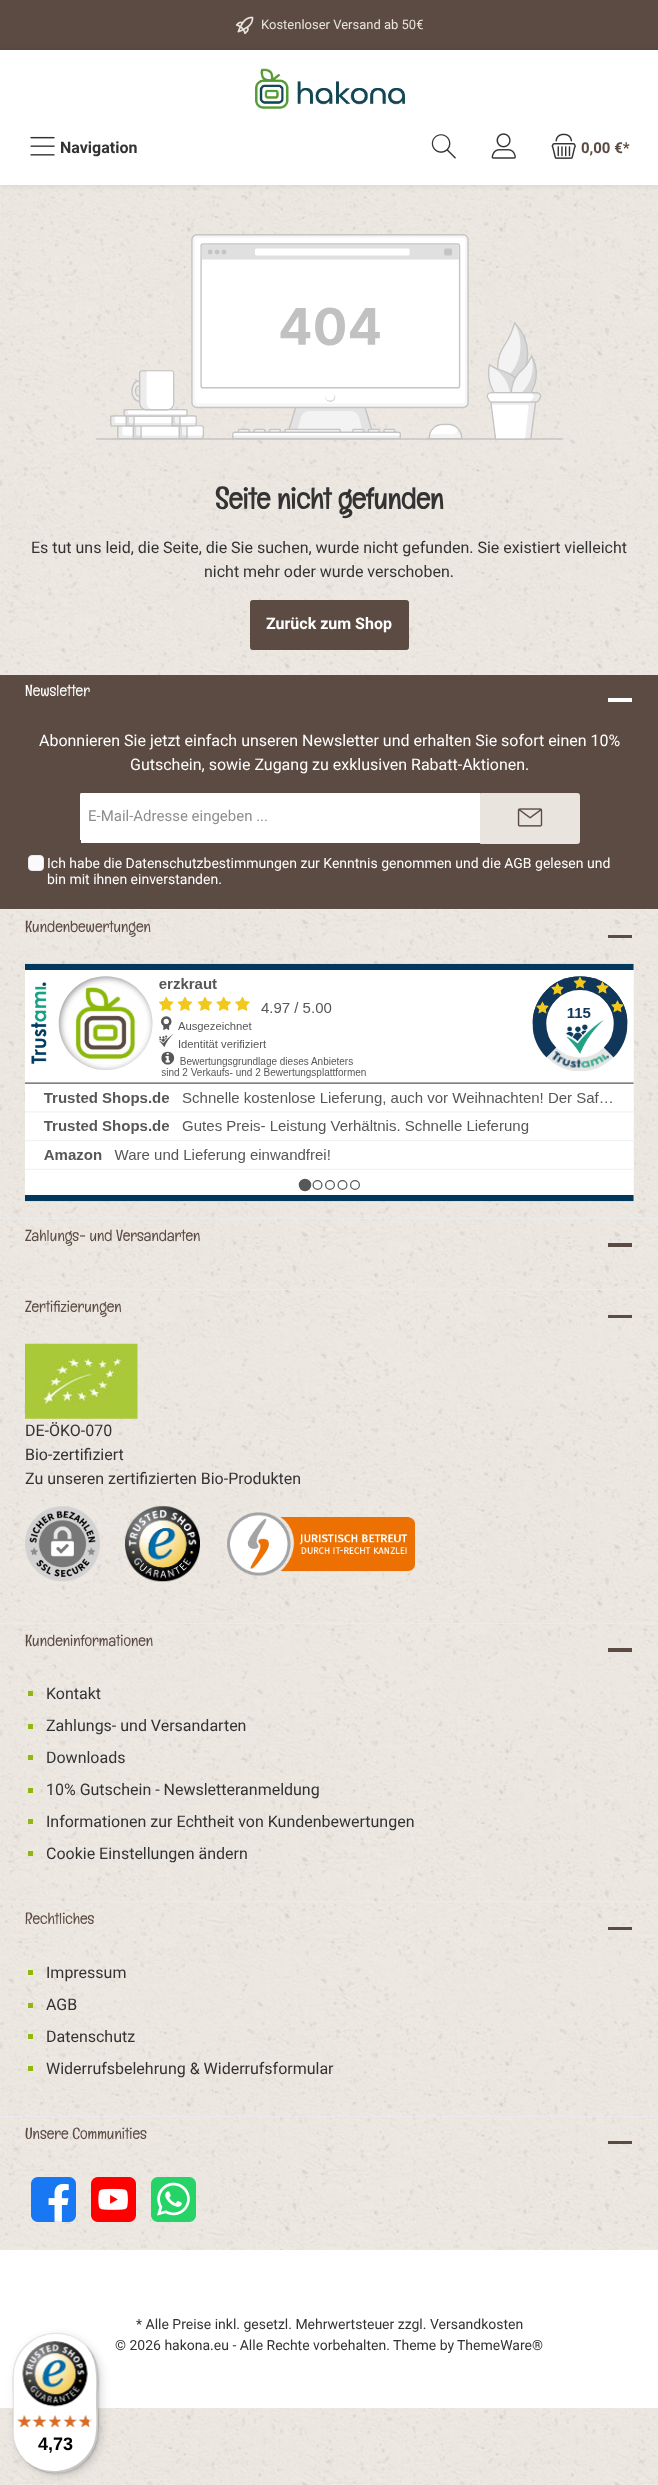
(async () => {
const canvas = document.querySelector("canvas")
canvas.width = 658
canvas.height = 2485
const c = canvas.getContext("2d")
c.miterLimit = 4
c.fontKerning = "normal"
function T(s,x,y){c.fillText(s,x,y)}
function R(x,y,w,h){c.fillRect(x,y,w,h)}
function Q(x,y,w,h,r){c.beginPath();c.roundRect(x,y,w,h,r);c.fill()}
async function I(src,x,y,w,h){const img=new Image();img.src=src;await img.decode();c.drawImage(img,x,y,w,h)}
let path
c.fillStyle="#fff"
R(0,0,658,2485)
await I("1.png",0,185,658,2300)
c.fillStyle="#5c4b42"
R(0,0,658,50)
await I("2.png",235,16,19,19)
c.font="13px Roboto"
c.fillStyle="#e9e4de"
T("Kostenloser Versand ab 50€",261,29)
c.fillStyle="#0000001a"
c.filter="blur(3px)"
c.beginPath()
c.rect(0,50,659,135)
c.fill()
c.filter="none"
c.fillStyle="#fff"
R(0,50,658,135)
await I("3.png",255,68,150,41)
await I("4.png",30,136,25,20)
c.font="bold 16px Roboto"
c.fillStyle="#333"
T("Navigation",60,153)
await I("5.png",431,134,25,25)
await I("6.png",491,133,25,26)
await I("7.png",551,133,25,26)
c.font="bold 15px Roboto"
c.fillStyle="#5c4b42"
T("0,00 €*",581,153)
await I("8.png",95,234,469,206)
c.font="bold 29.5px Englebert"
c.fillStyle="#333"
T("Seite nicht gefunden",215,509)
c.font="16px Roboto"
T("Es tut uns leid, die Seite, die Sie suchen, wurde nicht gefunden. Sie existiert vielleicht",31,553)
T("nicht mehr oder wurde verschoben.",204,577)
c.fillStyle="#5c4b42"
c.beginPath()
c.roundRect(250.5,600.5,158,49,2)
c.fill()
c.strokeStyle="#5c4b42"
c.stroke()
c.font="bold 16px Roboto"
c.fillStyle="#fff"
T("Zurück zum Shop",266,629)
c.fillStyle="#5c4b42"
R(0,675,658,234)
c.fillStyle="#eaeaf0"
R(0,909,658,1)
c.font="16px Englebert"
c.fillStyle="#fff"
T("Newsletter",25,696)
R(608,698,24,4)
c.font="16px Roboto"
T("Abonnieren Sie jetzt einfach unseren Newsletter und erhalten Sie sofort einen 10%",39,746)
T("Gutschein, sowie Zugang zu exklusiven Rabatt-Aktionen.",130,770)
c.save()
c.beginPath()
c.rect(25,793,609,101)
c.clip()
path = new Path2D("M82 792h398v48h-400v-45c0-1 1-3 2-3z")
c.fill(path)
c.restore()
R(81,840,399,3)
c.font="15px Roboto"
c.fillStyle="#8e8e8e"
T("E-Mail-Adresse eingeben ...",88,821)
c.fillStyle="#e9e4de"
c.beginPath()
c.roundRect(480.5,793.5,99,50,[0,2,2,0])
c.fill()
c.strokeStyle="#e9e4de"
c.stroke()
await I("9.png",517,808,26,19)
c.fillStyle="#fafafa"
c.beginPath()
c.roundRect(28.5,855.5,15,15,3.5)
c.fill()
c.strokeStyle="#eaeaf0"
c.stroke()
c.font="14px Roboto"
c.fillStyle="#fff"
T("Ich habe die Datenschutzbestimmungen zur Kenntnis genommen und die AGB gelesen und",47,868)
T("bin mit ihnen einverstanden.",47,884)
c.fillStyle="#eaeaf0"
R(0,1218,658,1)
c.font="16px Englebert"
c.fillStyle="#5c4b42"
T("Kundenbewertungen",25,932)
R(608,935,24,3)
await I("10.png",25,963,609,239)
c.fillStyle="#eaeaf0"
R(0,1289,658,1)
c.fillStyle="#5c4b42"
T("Zahlungs- und Versandarten",25,1241)
R(608,1243,24,4)
c.fillStyle="#eaeaf0"
R(0,1623,658,1)
c.fillStyle="#5c4b42"
T("Zertifizierungen",25,1312)
R(608,1315,24,3)
await I("11.png",25,1343,113,76)
c.font="16px Roboto"
c.fillStyle="#333"
T("DE-ÖKO-070",25,1436)
T("Bio-zertifiziert",25,1460)
T("Zu unseren zertifizierten Bio-Produkten",25,1484)
await I("12.png",25,1506,75,76)
await I("13.png",125,1506,75,76)
await I("14.png",227,1512,188,64)
c.fillStyle="#eaeaf0"
R(0,1901,658,1)
c.font="16px Englebert"
c.fillStyle="#5c4b42"
T("Kundeninformationen",25,1646)
R(608,1648,24,4)
c.fillStyle="#8eb80c"
R(28,1691,5,5)
c.font="16px Roboto"
c.fillStyle="#333"
T("Kontakt",46,1699)
c.fillStyle="#8eb80c"
R(28,1724,5,5)
c.fillStyle="#333"
T("Zahlungs- und Versandarten",46,1731)
c.fillStyle="#8eb80c"
R(28,1755,5,5)
c.fillStyle="#333"
T("Downloads",46,1763)
c.fillStyle="#8eb80c"
R(28,1788,5,5)
c.fillStyle="#333"
T("10% Gutschein - Newsletteranmeldung",46,1795)
c.fillStyle="#8eb80c"
R(28,1819,5,5)
c.fillStyle="#333"
T("Informationen zur Echtheit von Kundenbewertungen",46,1827)
c.fillStyle="#8eb80c"
R(28,1851,5,5)
c.fillStyle="#333"
T("Cookie Einstellungen ändern",46,1859)
c.fillStyle="#eaeaf0"
R(0,2116,658,1)
c.font="16px Englebert"
c.fillStyle="#5c4b42"
T("Rechtliches",25,1924)
R(608,1927,24,3)
c.fillStyle="#8eb80c"
R(28,1970,5,5)
c.font="16px Roboto"
c.fillStyle="#333"
T("Impressum",46,1978)
c.fillStyle="#8eb80c"
R(28,2003,5,5)
c.fillStyle="#333"
T("AGB",46,2010)
c.fillStyle="#8eb80c"
R(28,2034,5,5)
c.fillStyle="#333"
T("Datenschutz",46,2042)
c.fillStyle="#8eb80c"
R(28,2066,5,5)
c.fillStyle="#333"
T("Widerrufsbelehrung & Widerrufsformular",46,2074)
c.font="16px Englebert"
c.fillStyle="#5c4b42"
T("Unsere Communities",25,2139)
R(608,2141,24,3)
await I("15.png",31,2177,45,45)
await I("16.png",91,2177,45,45)
await I("17.png",151,2177,45,45)
c.fillStyle="#fff"
R(0,2250,658,158)
c.font="14px Roboto"
c.fillStyle="#333"
T("* Alle Preise inkl. gesetzl. Mehrwertsteuer zzgl.",136,2329)
T("Versandkosten",430,2329)
T("© 2026 hakona.eu - Alle Rechte vorbehalten. Theme by",115,2350)
T("ThemeWare®",457,2350)
c.fillStyle="#00000026"
c.filter="blur(5px)"
c.beginPath()
c.roundRect(16,2336,85,140,42.5)
c.fill()
c.filter="none"
c.filter="blur(1px)"
c.beginPath()
c.roundRect(14,2334,85,140,42.5)
c.fill()
c.filter="none"
c.fillStyle="#fff"
Q(13,2333,85,140,42.5)
c.fillStyle="#0000001a"
path = new Path2D("M56 2334c12 0 22 4 30 12c-21-22-58-15-70 13c-5 12-3 30-3 44c0 21-3 42 13 58c-8-8-12-18-12-30v-55c0-23 19-42 42-42z")
c.fill(path)
c.fillStyle="#00000033"
path = new Path2D("M25 2460c20 22 58 15 70-13c5-12 3-30 3-44c0-21 4-43-13-58c14 15 11 37 11 57c0 13 2 31-3 43c-12 28-47 34-68 15z")
c.fill(path)
c.fillStyle="#32323233"
path = new Path2D("M25 2461c21 20 58 14 70-14c5-12 3-30 3-44c0-21 3-42-12-58c7 8 11 18 11 29v55c0 24-19 43-43 43c-11 0-21-4-29-11z")
c.fill(path)
c.fillStyle="#ffffff4d"
path = new Path2D("M25 2461c21 20 58 14 70-14c5-12 3-30 3-44c0-21 3-42-12-58c7 8 11 18 11 29v55c0 24-19 43-43 43c-11 0-21-4-29-11z")
c.fill(path)
await I("18.png",22,2341,66,66)
await I("19.png",17,2415,14,13)
await I("20.png",34,2415,12,12)
await I("21.png",49,2415,12,13)
await I("22.png",64,2415,14,12)
await I("23.png",79,2415,14,13)
await I("24.png",17,2415,15,12)
await I("25.png",32,2415,15,12)
await I("26.png",48,2415,14,12)
await I("27.png",63,2415,14,12)
await I("28.png",78,2415,11,12)
c.font="bold 18px Liberation Sans"
c.fillStyle="#000"
T("4,73",38,2450)
})()
